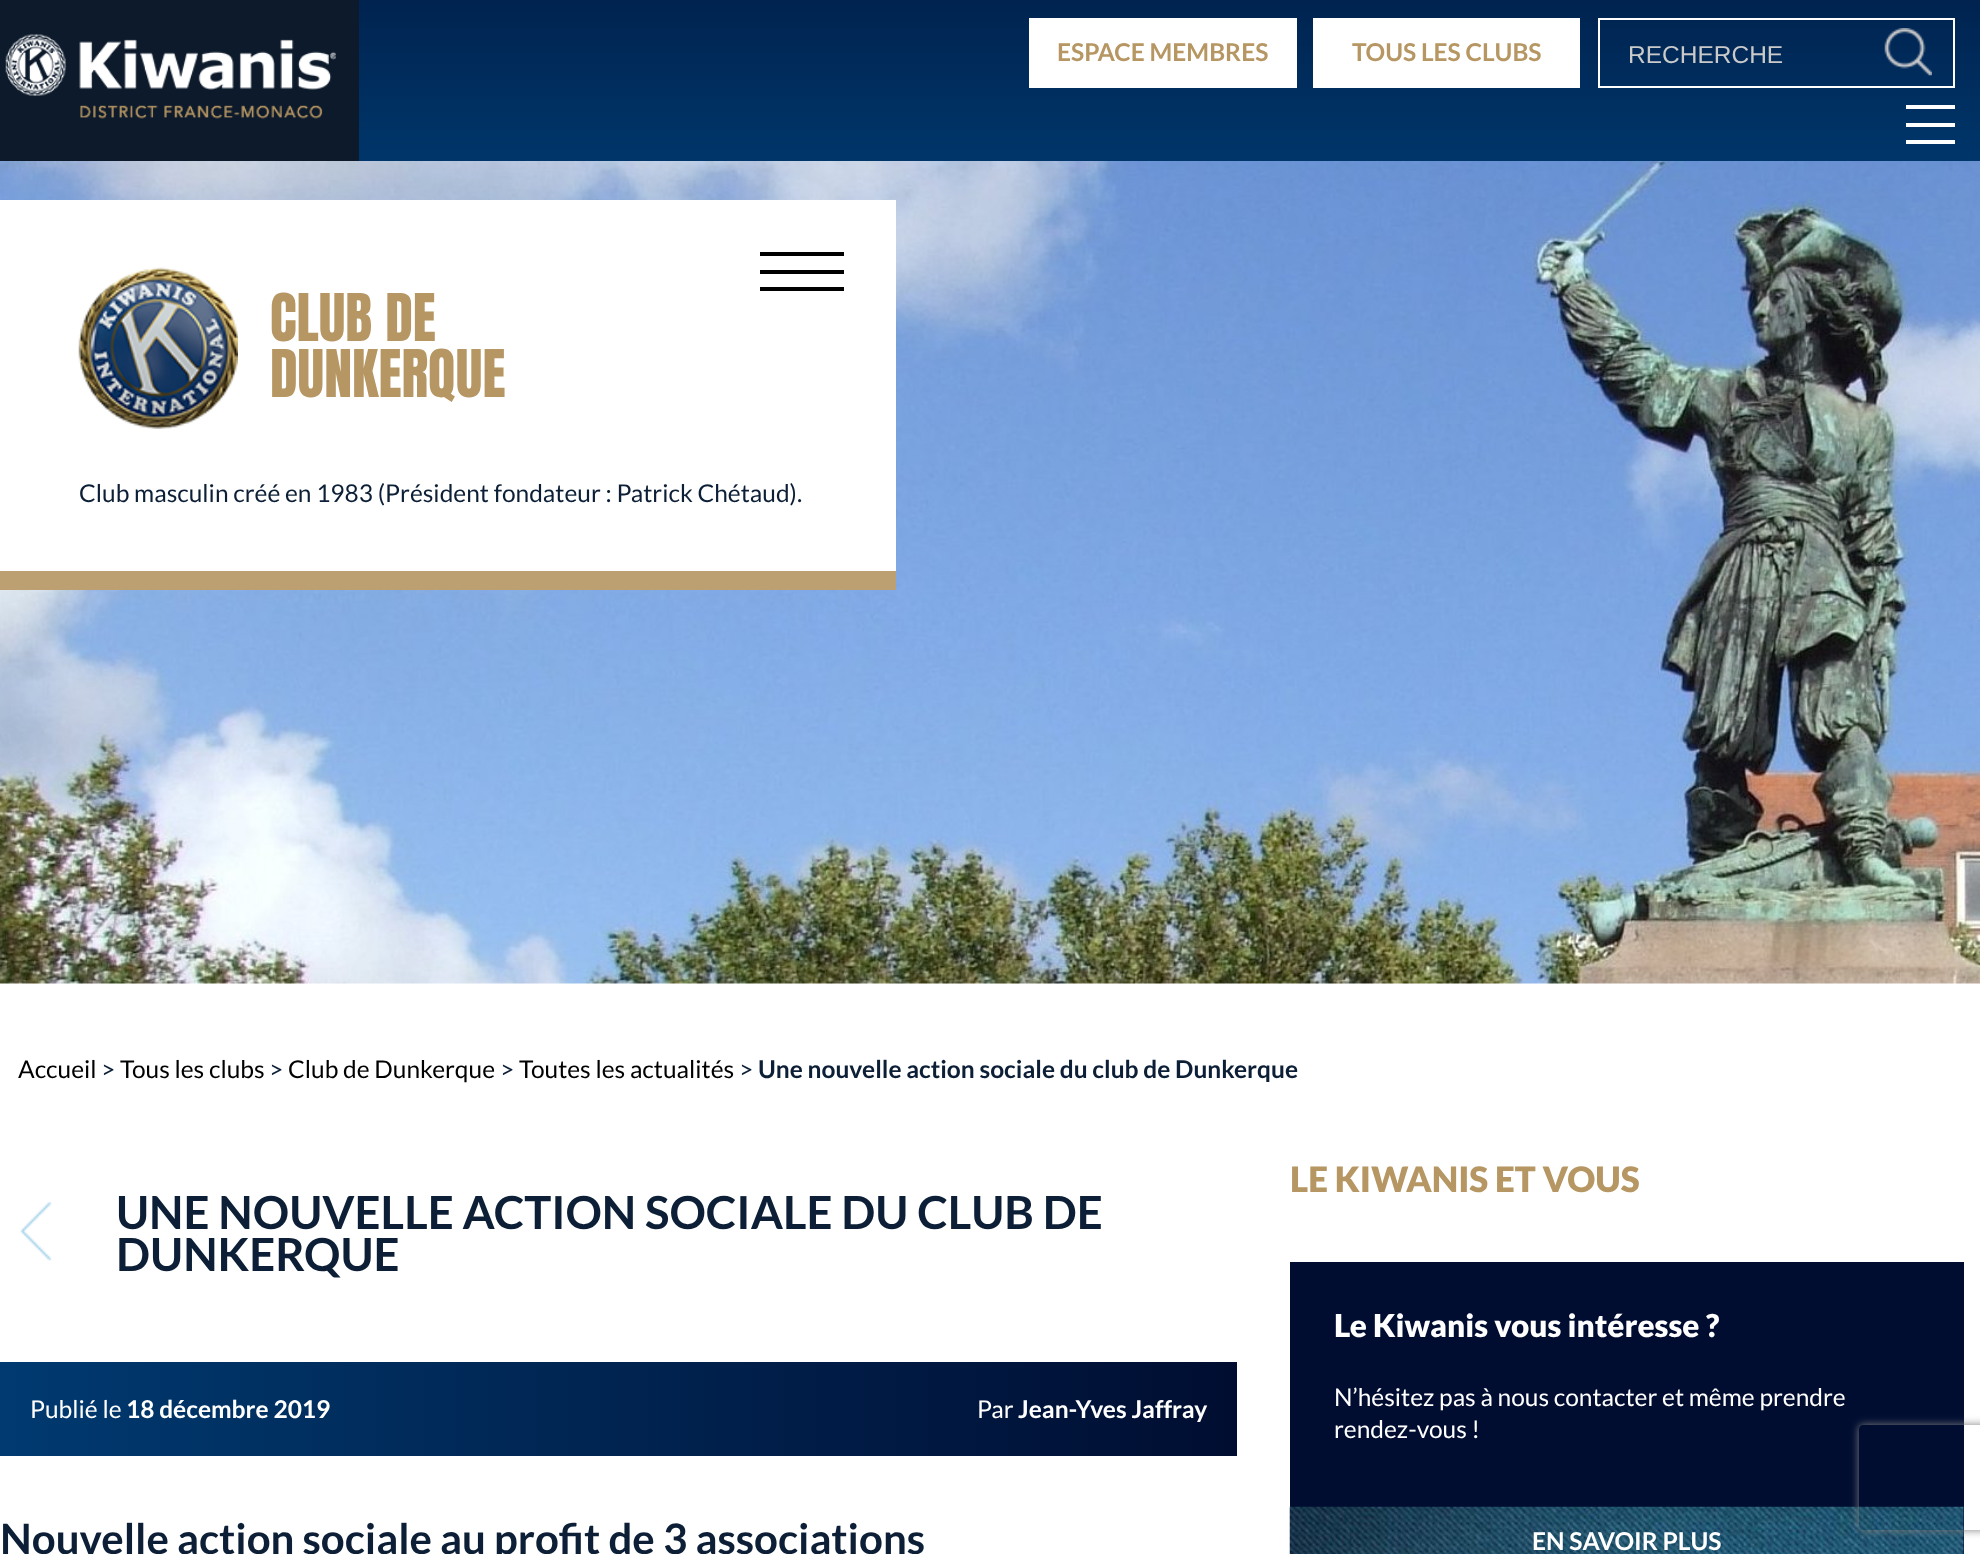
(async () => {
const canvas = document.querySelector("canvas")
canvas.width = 1980
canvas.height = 1554
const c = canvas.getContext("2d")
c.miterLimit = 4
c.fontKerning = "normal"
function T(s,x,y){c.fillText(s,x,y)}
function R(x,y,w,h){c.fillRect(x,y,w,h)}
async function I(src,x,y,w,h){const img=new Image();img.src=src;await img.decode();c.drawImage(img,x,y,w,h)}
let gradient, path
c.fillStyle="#fff"
R(0,0,1980,1554)
await I("1.png",359,0,1621,161)
c.fillStyle="#0c1a2b"
R(0,0,359,161)
await I("2.png",5,34,331,85)
c.fillStyle="#fff"
R(1029,18,268,70)
c.font="bold 24.5px Lato"
c.fillStyle="#b69662"
T("ESPACE MEMBRES",1057,61)
c.fillStyle="#fff"
R(1313,18,267,70)
c.fillStyle="#b69662"
T("TOUS LES CLUBS",1352,61)
c.strokeStyle="#fff"
c.lineWidth=2
c.strokeRect(1599,19,355,68)
c.font="24.5px Liberation Sans"
c.fillStyle="#cacaca"
T("RECHERCHE",1628,63)
await I("3.png",1884,28,48,48)
c.fillStyle="#fff"
R(1906,140,49,4)
R(1906,123,49,4)
R(1906,105,49,4)
await I("4.png",0,161,1980,823)
R(0,200,896,371)
c.fillStyle="#bda071"
R(0,571,896,19)
c.fillStyle="#000"
R(760,287,84,4)
R(760,252,84,4)
R(760,270,84,4)
await I("5.png",78,267,160,162)
c.font="56px Anton"
c.fillStyle="#b69662"
T("CLUB DE",270,341)
T("DUNKERQUE",270,397)
c.font="24.5px Lato"
c.fillStyle="#0c1f36"
T("Club masculin créé en 1983 (Président fondateur : Patrick Chétaud).",79,502)
c.fillStyle="#000"
T("Accueil",18,1078)
c.fillStyle="#0c1f36"
T(">",101,1078)
c.fillStyle="#000"
T("Tous les clubs",120,1078)
c.fillStyle="#0c1f36"
T(">",269,1078)
c.fillStyle="#000"
T("Club de Dunkerque",288,1078)
c.fillStyle="#0c1f36"
T(">",500,1078)
c.fillStyle="#000"
T("Toutes les actualités",519,1078)
c.fillStyle="#0c1f36"
T(">",739,1078)
c.font="bold 24.5px Lato"
T("Une nouvelle action sociale du club de Dunkerque",758,1078)
await I("6.png",20,1202,32,59)
c.font="bold 45.5px Lato"
T("UNE NOUVELLE ACTION SOCIALE DU CLUB DE",116,1229)
T("DUNKERQUE",116,1271)
gradient = c.createLinearGradient(0,1409,1237,1409)
gradient.addColorStop(0,"#003a70")
gradient.addColorStop(1,"#000d31")
c.fillStyle = gradient
R(0,1362,1237,94)
c.font="24.5px Lato"
c.fillStyle="#fff"
T("Publié le",30,1418)
c.font="bold 24.5px Lato"
T("18 décembre 2019",126,1418)
c.font="24.5px Lato"
T("Par",977,1418)
c.font="bold 24.5px Lato"
T("Jean-Yves Jaffray",1018,1418)
c.font="bold 42px Lato"
c.fillStyle="#0c1f36"
T("Nouvelle action sociale au profit de 3 associations",0,1554)
c.font="900 35px Lato"
c.fillStyle="#b69662"
T("LE KIWANIS ET VOUS",1290,1192)
c.fillStyle="#000d31"
R(1290,1262,674,292)
c.font="900 31.5px Lato"
c.fillStyle="#fff"
T("Le Kiwanis vous intéresse ?",1334,1337)
c.font="24.5px Lato"
T("N’hésitez pas à nous contacter et même prendre",1334,1406)
T("rendez-vous !",1334,1438)
await I("7.png",1289,1506,675,48)
c.font="bold 24.5px Lato"
T("EN SAVOIR PLUS",1532,1550)
c.save()
path = new Path2D("M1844 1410h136v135h-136zm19 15h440c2 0 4 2 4 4v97c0 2-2 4-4 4h-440c-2 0-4-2-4-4v-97c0-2 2-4 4-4z")
c.clip(path,"evenodd")
c.fillStyle="#808080"
c.filter="blur(4.5px)"
c.beginPath()
c.roundRect(1859,1425,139,105,4)
c.fill()
c.filter="none"
c.restore()
})()
